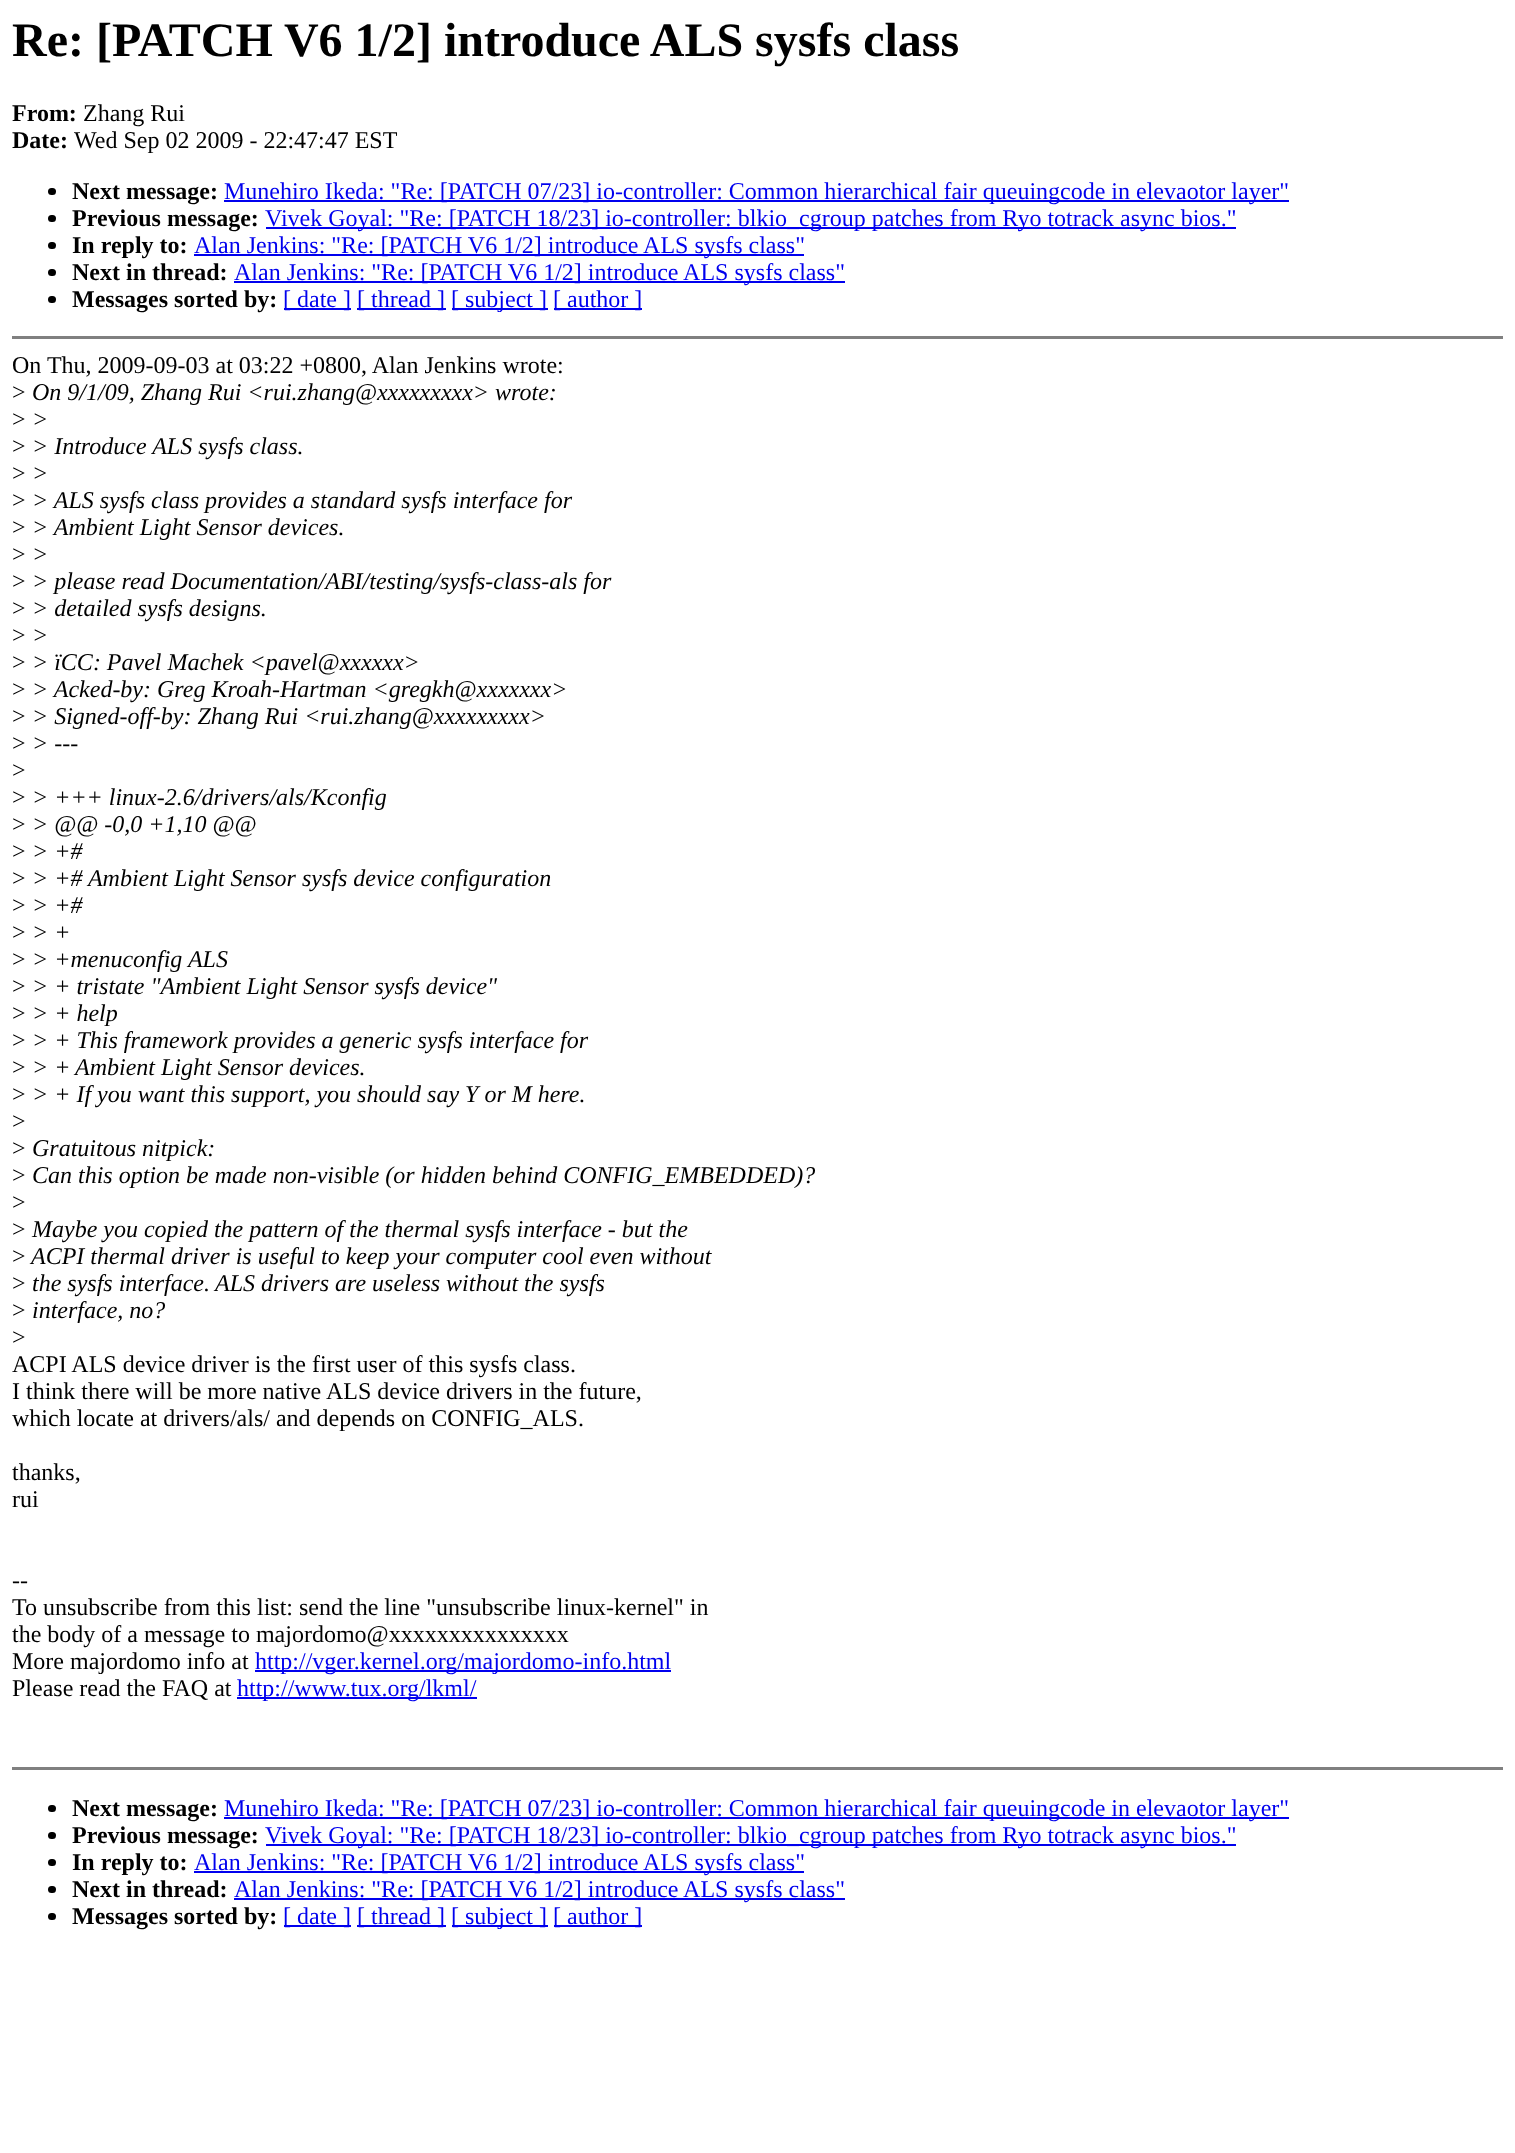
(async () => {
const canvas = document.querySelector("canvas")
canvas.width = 1515
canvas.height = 2153
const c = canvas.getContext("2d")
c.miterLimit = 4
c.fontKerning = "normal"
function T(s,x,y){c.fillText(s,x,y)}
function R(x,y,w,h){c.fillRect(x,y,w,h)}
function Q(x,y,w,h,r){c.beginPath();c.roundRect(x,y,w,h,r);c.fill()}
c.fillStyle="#fff"
R(0,0,1515,2153)
c.font="bold 48px Liberation Serif"
c.fillStyle="#000"
T("Re: [PATCH V6 1/2] introduce ALS sysfs class",12,56)
c.font="bold 24px Liberation Serif"
T("From:",12,121)
c.font="24px Liberation Serif"
T("Zhang Rui",83,121)
c.font="bold 24px Liberation Serif"
T("Date:",12,148)
c.font="24px Liberation Serif"
T("Wed Sep 02 2009 - 22:47:47 EST",74,148)
Q(48,188,8,7,3.5)
c.font="bold 24px Liberation Serif"
T("Next message:",72,199)
c.fillStyle="#00e"
R(224,200,1065,2)
c.font="24px Liberation Serif"
T("Munehiro Ikeda: \"Re: [PATCH 07/23] io-controller: Common hierarchical fair queuingcode in elevaotor layer\"",224,199)
c.fillStyle="#000"
Q(48,215,8,7,3.5)
c.font="bold 24px Liberation Serif"
T("Previous message:",72,226)
c.fillStyle="#00e"
R(266,227,970,2)
c.font="24px Liberation Serif"
T("Vivek Goyal: \"Re: [PATCH 18/23] io-controller: blkio_cgroup patches from Ryo totrack async bios.\"",265,226)
c.fillStyle="#000"
Q(48,242,8,7,3.5)
c.font="bold 24px Liberation Serif"
T("In reply to:",72,253)
c.fillStyle="#00e"
R(194,254,610,2)
c.font="24px Liberation Serif"
T("Alan Jenkins: \"Re: [PATCH V6 1/2] introduce ALS sysfs class\"",194,253)
c.fillStyle="#000"
Q(48,269,8,7,3.5)
c.font="bold 24px Liberation Serif"
T("Next in thread:",72,280)
c.fillStyle="#00e"
R(234,281,611,2)
c.font="24px Liberation Serif"
T("Alan Jenkins: \"Re: [PATCH V6 1/2] introduce ALS sysfs class\"",234,280)
c.fillStyle="#000"
Q(48,296,8,7,3.5)
c.font="bold 24px Liberation Serif"
T("Messages sorted by:",72,307)
c.fillStyle="#00e"
R(284,308,67,2)
c.font="24px Liberation Serif"
T("[ date ]",283,307)
R(357,308,89,2)
T("[ thread ]",357,307)
R(452,308,96,2)
T("[ subject ]",451,307)
R(554,308,88,2)
T("[ author ]",553,307)
c.fillStyle="#808080"
R(12,336,1491,3)
c.fillStyle="#000"
T("On Thu, 2009-09-03 at 03:22 +0800, Alan Jenkins wrote:",12,373)
T(">",12,400)
c.font="italic 24px Liberation Serif"
T("On 9/1/09, Zhang Rui <rui.zhang@xxxxxxxxx> wrote:",32,400)
c.font="24px Liberation Serif"
T(">",12,427)
c.font="italic 24px Liberation Serif"
T(">",32,427)
c.font="24px Liberation Serif"
T(">",12,454)
c.font="italic 24px Liberation Serif"
T("> Introduce ALS sysfs class.",32,454)
c.font="24px Liberation Serif"
T(">",12,481)
c.font="italic 24px Liberation Serif"
T(">",32,481)
c.font="24px Liberation Serif"
T(">",12,508)
c.font="italic 24px Liberation Serif"
T("> ALS sysfs class provides a standard sysfs interface for",32,508)
c.font="24px Liberation Serif"
T(">",12,535)
c.font="italic 24px Liberation Serif"
T("> Ambient Light Sensor devices.",32,535)
c.font="24px Liberation Serif"
T(">",12,562)
c.font="italic 24px Liberation Serif"
T(">",32,562)
c.font="24px Liberation Serif"
T(">",12,589)
c.font="italic 24px Liberation Serif"
T("> please read Documentation/ABI/testing/sysfs-class-als for",32,589)
c.font="24px Liberation Serif"
T(">",12,616)
c.font="italic 24px Liberation Serif"
T("> detailed sysfs designs.",32,616)
c.font="24px Liberation Serif"
T(">",12,643)
c.font="italic 24px Liberation Serif"
T(">",32,643)
c.font="24px Liberation Serif"
T(">",12,670)
c.font="italic 24px Liberation Serif"
T("> ïCC: Pavel Machek <pavel@xxxxxx>",32,670)
c.font="24px Liberation Serif"
T(">",12,697)
c.font="italic 24px Liberation Serif"
T("> Acked-by: Greg Kroah-Hartman <gregkh@xxxxxxx>",32,697)
c.font="24px Liberation Serif"
T(">",12,724)
c.font="italic 24px Liberation Serif"
T("> Signed-off-by: Zhang Rui <rui.zhang@xxxxxxxxx>",32,724)
c.font="24px Liberation Serif"
T(">",12,751)
c.font="italic 24px Liberation Serif"
T("> ---",32,751)
c.font="24px Liberation Serif"
T(">",12,778)
T(">",12,805)
c.font="italic 24px Liberation Serif"
T("> +++ linux-2.6/drivers/als/Kconfig",32,805)
c.font="24px Liberation Serif"
T(">",12,832)
c.font="italic 24px Liberation Serif"
T("> @@ -0,0 +1,10 @@",32,832)
c.font="24px Liberation Serif"
T(">",12,859)
c.font="italic 24px Liberation Serif"
T("> +#",32,859)
c.font="24px Liberation Serif"
T(">",12,886)
c.font="italic 24px Liberation Serif"
T("> +# Ambient Light Sensor sysfs device configuration",32,886)
c.font="24px Liberation Serif"
T(">",12,913)
c.font="italic 24px Liberation Serif"
T("> +#",32,913)
c.font="24px Liberation Serif"
T(">",12,940)
c.font="italic 24px Liberation Serif"
T("> +",32,940)
c.font="24px Liberation Serif"
T(">",12,967)
c.font="italic 24px Liberation Serif"
T("> +menuconfig ALS",32,967)
c.font="24px Liberation Serif"
T(">",12,994)
c.font="italic 24px Liberation Serif"
T("> + tristate \"Ambient Light Sensor sysfs device\"",32,994)
c.font="24px Liberation Serif"
T(">",12,1021)
c.font="italic 24px Liberation Serif"
T("> + help",32,1021)
c.font="24px Liberation Serif"
T(">",12,1048)
c.font="italic 24px Liberation Serif"
T("> + This framework provides a generic sysfs interface for",32,1048)
c.font="24px Liberation Serif"
T(">",12,1075)
c.font="italic 24px Liberation Serif"
T("> +",32,1075)
T("Ambient Light Sensor devices.",75,1075)
c.font="24px Liberation Serif"
T(">",12,1102)
c.font="italic 24px Liberation Serif"
T("> + If you want this support, you should say Y or M here.",32,1102)
c.font="24px Liberation Serif"
T(">",12,1129)
T(">",12,1156)
c.font="italic 24px Liberation Serif"
T("Gratuitous nitpick:",32,1156)
c.font="24px Liberation Serif"
T(">",12,1183)
c.font="italic 24px Liberation Serif"
T("Can this option be made non-visible (or hidden behind CONFIG_EMBEDDED)?",32,1183)
c.font="24px Liberation Serif"
T(">",12,1210)
T(">",12,1237)
c.font="italic 24px Liberation Serif"
T("Maybe you copied the pattern of the thermal sysfs interface - but the",32,1237)
c.font="24px Liberation Serif"
T(">",12,1264)
c.font="italic 24px Liberation Serif"
T("ACPI thermal driver is useful to keep your computer cool even without",31,1264)
c.font="24px Liberation Serif"
T(">",12,1291)
c.font="italic 24px Liberation Serif"
T("the sysfs interface.",32,1291)
T("ALS drivers are useless without the sysfs",215,1291)
c.font="24px Liberation Serif"
T(">",12,1318)
c.font="italic 24px Liberation Serif"
T("interface, no?",32,1318)
c.font="24px Liberation Serif"
T(">",12,1345)
T("ACPI ALS device driver is the first user of this sysfs class.",12,1372)
T("I think there will be more native ALS device drivers in the future,",12,1399)
T("which locate at drivers/als/ and depends on CONFIG_ALS.",12,1426)
T("thanks,",12,1480)
T("rui",12,1507)
T("--",12,1588)
T("To unsubscribe from this list: send the line \"unsubscribe linux-kernel\" in",12,1615)
T("the body of a message to majordomo@xxxxxxxxxxxxxxx",12,1642)
T("More majordomo info at",12,1669)
c.fillStyle="#00e"
R(255,1670,416,2)
T("http://vger.kernel.org/majordomo-info.html",255,1669)
c.fillStyle="#000"
T("Please read the FAQ at",12,1696)
c.fillStyle="#00e"
R(237,1697,240,2)
T("http://www.tux.org/lkml/",237,1696)
c.fillStyle="#808080"
R(12,1767,1491,3)
c.fillStyle="#000"
Q(48,1805,8,7,3.5)
c.font="bold 24px Liberation Serif"
T("Next message:",72,1816)
c.fillStyle="#00e"
R(224,1817,1065,2)
c.font="24px Liberation Serif"
T("Munehiro Ikeda: \"Re: [PATCH 07/23] io-controller: Common hierarchical fair queuingcode in elevaotor layer\"",224,1816)
c.fillStyle="#000"
Q(48,1832,8,7,3.5)
c.font="bold 24px Liberation Serif"
T("Previous message:",72,1843)
c.fillStyle="#00e"
R(266,1844,970,2)
c.font="24px Liberation Serif"
T("Vivek Goyal: \"Re: [PATCH 18/23] io-controller: blkio_cgroup patches from Ryo totrack async bios.\"",265,1843)
c.fillStyle="#000"
Q(48,1859,8,7,3.5)
c.font="bold 24px Liberation Serif"
T("In reply to:",72,1870)
c.fillStyle="#00e"
R(194,1871,610,2)
c.font="24px Liberation Serif"
T("Alan Jenkins: \"Re: [PATCH V6 1/2] introduce ALS sysfs class\"",194,1870)
c.fillStyle="#000"
Q(48,1886,8,7,3.5)
c.font="bold 24px Liberation Serif"
T("Next in thread:",72,1897)
c.fillStyle="#00e"
R(234,1898,611,2)
c.font="24px Liberation Serif"
T("Alan Jenkins: \"Re: [PATCH V6 1/2] introduce ALS sysfs class\"",234,1897)
c.fillStyle="#000"
Q(48,1913,8,7,3.5)
c.font="bold 24px Liberation Serif"
T("Messages sorted by:",72,1924)
c.fillStyle="#00e"
R(284,1925,67,2)
c.font="24px Liberation Serif"
T("[ date ]",283,1924)
R(357,1925,89,2)
T("[ thread ]",357,1924)
R(452,1925,96,2)
T("[ subject ]",451,1924)
R(554,1925,88,2)
T("[ author ]",553,1924)
})()
